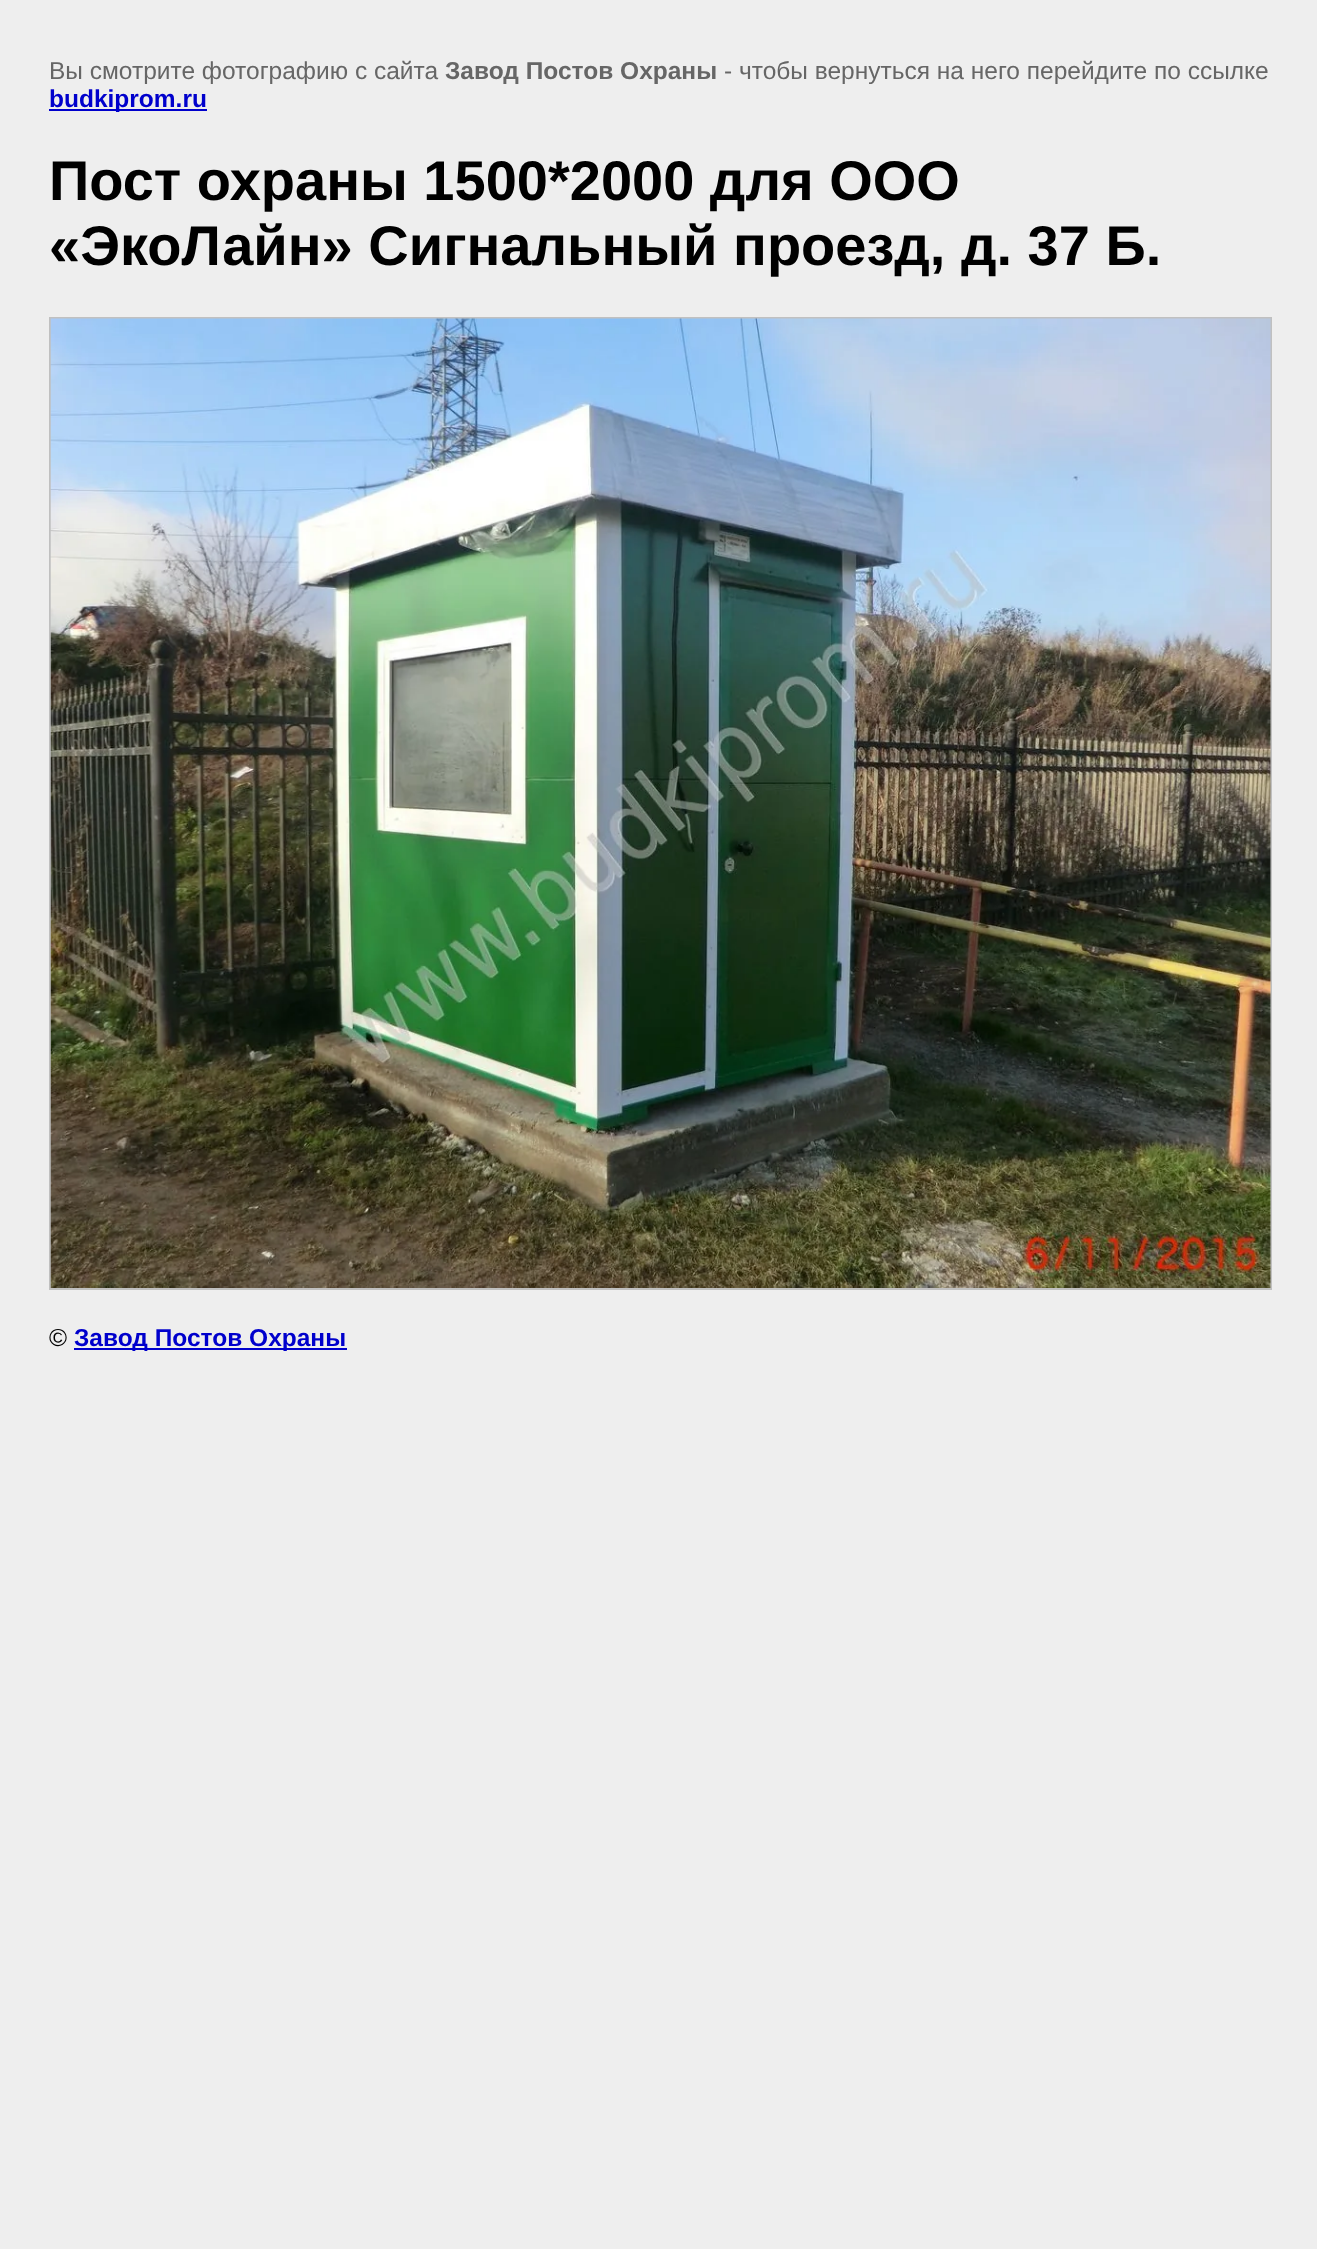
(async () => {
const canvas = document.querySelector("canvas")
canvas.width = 1317
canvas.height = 2249
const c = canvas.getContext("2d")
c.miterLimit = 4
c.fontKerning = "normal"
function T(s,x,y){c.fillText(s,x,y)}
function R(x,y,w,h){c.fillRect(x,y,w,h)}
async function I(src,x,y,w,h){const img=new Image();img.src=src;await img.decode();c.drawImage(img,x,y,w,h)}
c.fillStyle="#eee"
R(0,0,1317,2249)
c.font="24.5px Liberation Sans"
c.fillStyle="#666"
T("Вы смотрите фотографию с сайта",49,79)
c.font="bold 24.5px Liberation Sans"
T("Завод Постов Охраны",445,79)
c.font="24.5px Liberation Sans"
T("- чтобы вернуться на него перейдите по ссылке",724,79)
c.fillStyle="#00c"
R(49,109,158,2)
c.font="bold 24.5px Liberation Sans"
T("budkiprom.ru",49,107)
c.font="bold 56px Liberation Sans"
c.fillStyle="#000"
T("Пост охраны 1500*2000 для ООО",49,200)
T("«ЭкоЛайн» Сигнальный проезд, д. 37 Б.",49,265)
c.strokeStyle="#c0c0c0"
c.lineWidth=2
c.strokeRect(50,318,1221,971)
await I("1.png",50,318,1221,970)
c.font="24.5px Liberation Sans"
T("©",49,1346)
c.fillStyle="#00c"
R(74,1348,273,2)
c.font="bold 24.5px Liberation Sans"
T("Завод Постов Охраны",74,1346)
})()
